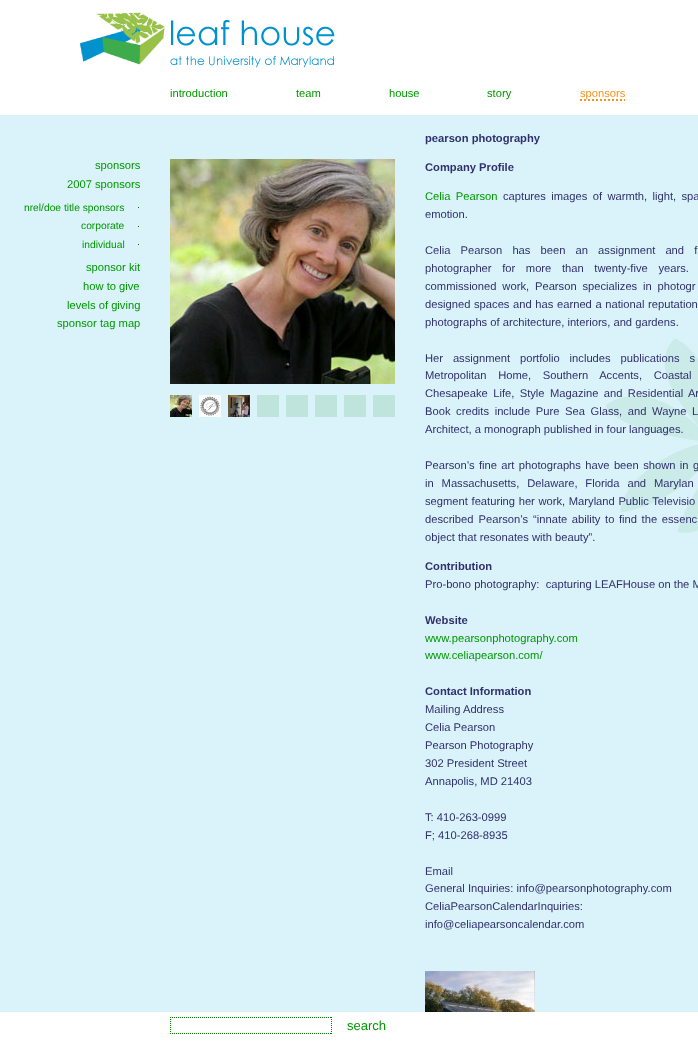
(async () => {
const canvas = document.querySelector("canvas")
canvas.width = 698
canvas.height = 1042
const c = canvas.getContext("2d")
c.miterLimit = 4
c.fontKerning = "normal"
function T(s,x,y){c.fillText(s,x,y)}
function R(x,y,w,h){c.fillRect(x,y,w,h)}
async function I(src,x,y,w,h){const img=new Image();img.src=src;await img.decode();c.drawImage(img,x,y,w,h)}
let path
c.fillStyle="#daf3fa"
R(0,0,698,1042)
await I("1.png",605,338,93,195)
c.fillStyle="#fff"
R(0,0,698,115)
await I("2.png",80,12,255,56)
c.font="11.2px Liberation Sans"
c.fillStyle="#090"
T("introduction",170,97)
T("team",296,97)
T("house",389,97)
T("story",487,97)
path = new Path2D("M580 100h45")
c.strokeStyle="#f7931d"
c.lineWidth=2
c.setLineDash([2,2])
c.stroke(path)
c.fillStyle="#f7931d"
T("sponsors",580,97)
c.fillStyle="#090"
T("sponsors",95,169)
T("2007 sponsors",67,188)
c.fillStyle="#070"
R(138,207,1,1)
c.font="10.25px Liberation Sans"
c.fillStyle="#090"
T("nrel/doe title sponsors",24,211)
c.fillStyle="#070"
R(138,226,1,1)
c.fillStyle="#090"
T("corporate",81,229)
c.fillStyle="#070"
R(138,244,1,1)
c.fillStyle="#090"
T("individual",82,248)
c.font="11.2px Liberation Sans"
T("sponsor kit",86,271)
T("how to give",83,290)
T("levels of giving",67,309)
T("sponsor tag map",57,327)
await I("3.png",170,159,225,225)
await I("4.png",257,395,138,22)
await I("5.png",170,395,22,22)
await I("6.png",199,395,22,22)
await I("7.png",228,395,22,22)
c.font="bold 11.2px Liberation Sans"
c.fillStyle="#30306d"
T("pearson photography",425,142)
T("Company Profile",425,171)
c.wordSpacing="2.25px"
c.font="11.2px Liberation Sans"
c.fillStyle="#090"
T("Celia Pearson",425,200)
c.fillStyle="#30306d"
T("captures images of warmth, light, spa",503,200)
c.wordSpacing="0px"
T("emotion.",425,218)
c.wordSpacing="7px"
T("Celia Pearson has been an assignment and f",425,254)
c.wordSpacing="7.5px"
T("photographer for more than twenty-five years.",425,272)
c.wordSpacing="2.75px"
T("commissioned work, Pearson specializes in photogr",425,290)
c.wordSpacing="0.5px"
T("designed spaces and has earned a national reputation",425,308)
c.wordSpacing="0px"
T("photographs of architecture, interiors, and gardens.",425,326)
c.wordSpacing="6.75px"
T("Her assignment portfolio includes publications s",425,362)
c.wordSpacing="8.5px"
T("Metropolitan Home, Southern Accents, Coastal",425,379)
c.wordSpacing="2.25px"
T("Chesapeake Life, Style Magazine and Residential Ar",425,397)
c.wordSpacing="2.5px"
T("Book credits include Pure Sea Glass, and Wayne L",425,415)
c.wordSpacing="0px"
T("Architect, a monograph published in four languages.",425,433)
c.wordSpacing="1.25px"
T("Pearson’s fine art photographs have been shown in g",425,469)
c.wordSpacing="4.75px"
T("in Massachusetts, Delaware, Florida and Marylan",425,487)
c.wordSpacing="0.5px"
T("segment featuring her work, Maryland Public Televisio",425,505)
c.wordSpacing="2px"
T("described Pearson’s",425,523)
c.wordSpacing="1.5px"
T("“innate ability to find the essenc",533,523)
c.wordSpacing="0px"
T("object that resonates with beauty”.",425,541)
c.font="bold 11.2px Liberation Sans"
T("Contribution",425,570)
c.font="11.2px Liberation Sans"
T("Pro-bono photography:  capturing LEAFHouse on the M",425,588)
c.font="bold 11.2px Liberation Sans"
T("Website",425,624)
c.font="11.2px Liberation Sans"
c.fillStyle="#090"
T("www.pearsonphotography.com",425,642)
T("www.celiapearson.com/",425,659)
c.font="bold 11.2px Liberation Sans"
c.fillStyle="#30306d"
T("Contact Information",425,695)
c.font="11.2px Liberation Sans"
T("Mailing Address",425,713)
T("Celia Pearson",425,731)
T("Pearson Photography",425,749)
T("302 President Street",425,767)
T("Annapolis, MD 21403",425,785)
T("T: 410-263-0999",425,821)
T("F; 410-268-8935",425,839)
T("Email",425,875)
T("General Inquiries: info@pearsonphotography.com",425,892)
T("CeliaPearsonCalendarInquiries:",425,910)
T("info@celiapearsoncalendar.com",425,928)
await I("8.png",425,971,110,41)
c.fillStyle="#fff"
R(0,1012,698,30)
path = new Path2D("M170 1017.5h162")
c.strokeStyle="#008000"
c.lineWidth=1
c.setLineDash([1,1])
c.stroke(path)
path = new Path2D("M331.5 1017v17")
c.stroke(path)
path = new Path2D("M170 1033.5h162")
c.stroke(path)
path = new Path2D("M170.5 1017v17")
c.stroke(path)
c.font="13px Liberation Sans"
c.fillStyle="#090"
T("search",347,1030)
})()
